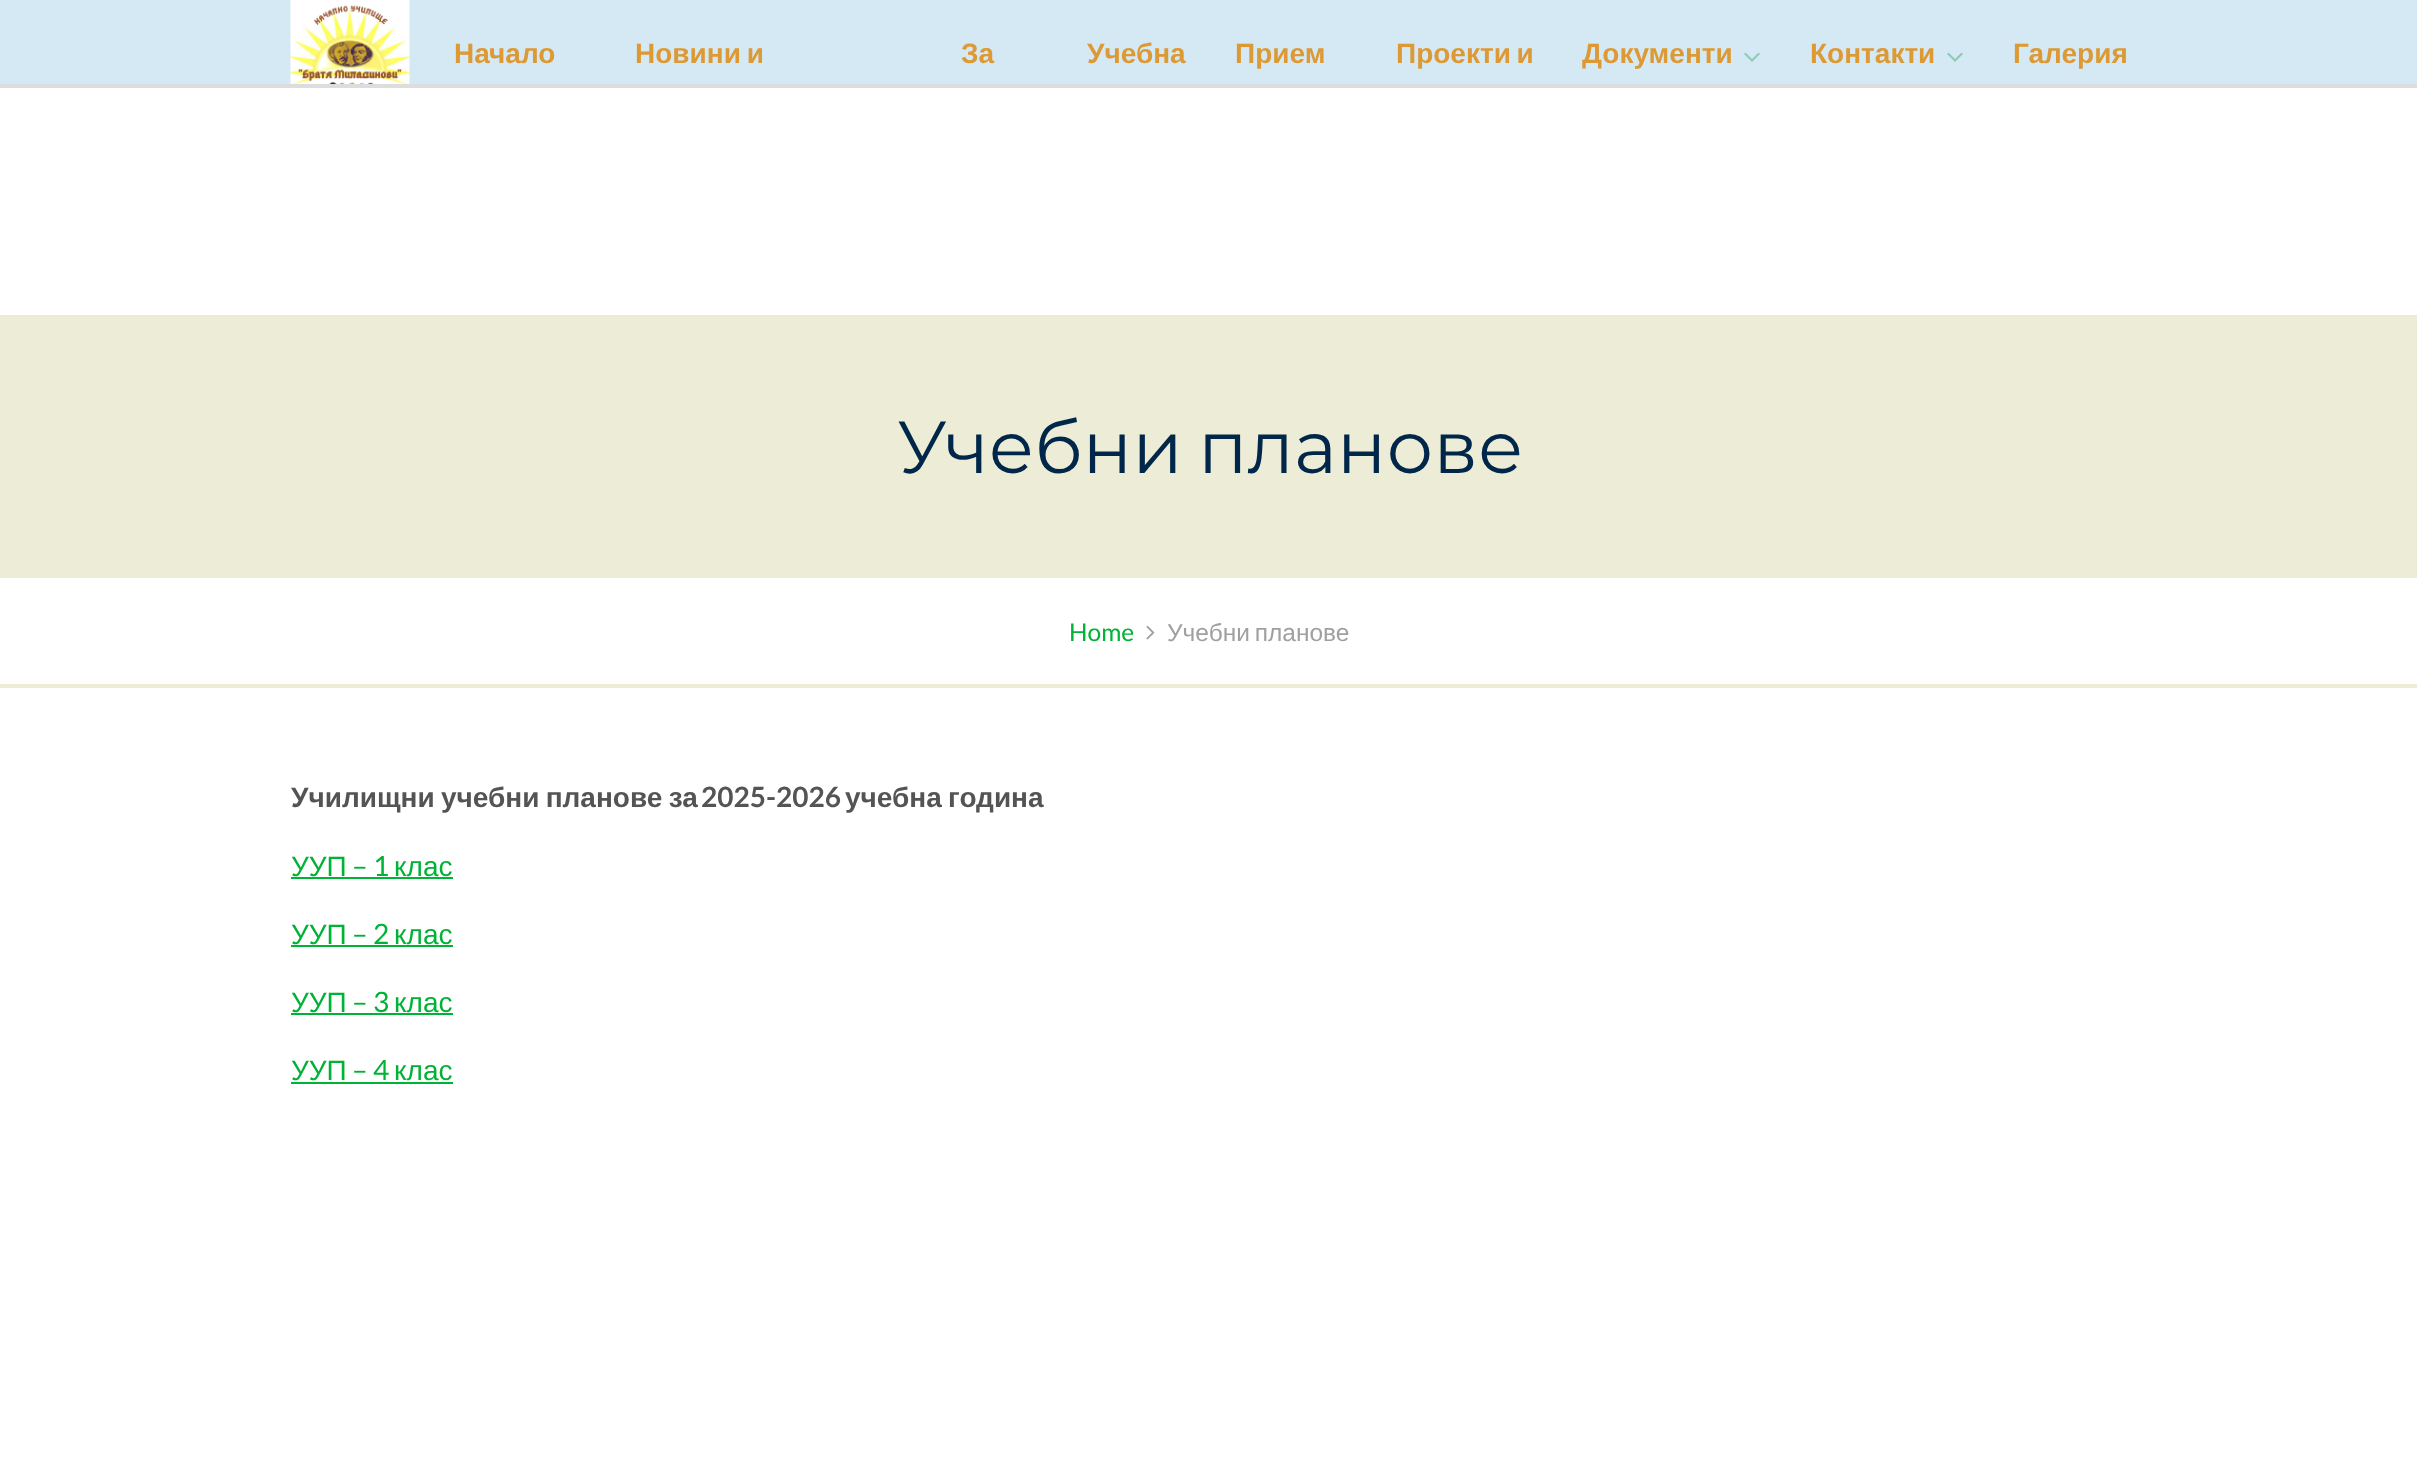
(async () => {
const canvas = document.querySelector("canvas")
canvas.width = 2417
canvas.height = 1484
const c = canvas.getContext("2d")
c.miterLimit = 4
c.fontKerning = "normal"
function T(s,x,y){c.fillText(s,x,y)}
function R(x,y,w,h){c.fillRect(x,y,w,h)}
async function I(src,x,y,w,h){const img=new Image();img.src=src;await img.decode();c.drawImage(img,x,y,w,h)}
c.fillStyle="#fff"
R(0,0,2417,1484)
c.fillStyle="#d4e9f4"
R(0,0,2417,84)
c.fillStyle="#ddd"
R(0,84,2417,4)
await I("1.png",290,0,120,84)
c.font="bold 28px Liberation Sans"
c.fillStyle="#d93"
T("Начало",454,63)
c.wordSpacing="-2px"
T("Новини и",635,63)
c.wordSpacing="0px"
T("За",961,63)
T("Учебна",1087,63)
T("Прием",1235,63)
c.wordSpacing="-2px"
T("Проекти и",1396,63)
c.wordSpacing="0px"
T("Документи",1582,63)
await I("2.png",1744,52,16,10)
T("Контакти",1810,63)
await I("2.png",1947,52,16,10)
T("Галерия",2013,63)
c.fillStyle="#ededd7"
R(0,315,2417,263)
c.wordSpacing="-4px"
c.font="73.5px Montserrat"
c.fillStyle="#002749"
T("Учебни планове",897,473)
c.fillStyle="#ededd7"
R(0,684,2417,4)
c.wordSpacing="0px"
c.font="24.5px Lato"
c.fillStyle="#00b235"
T("Home",1069,641)
await I("3.png",1146,625,9,15)
c.wordSpacing="-2px"
c.font="24.5px Liberation Sans"
c.fillStyle="#a0a0a0"
T("Учебни планове",1167,641)
c.wordSpacing="-1.5px"
c.font="bold 28px Liberation Sans"
c.fillStyle="#545454"
T("Училищни учебни планове за",291,807)
c.wordSpacing="0px"
c.font="bold 28px Lato"
T("2025-2026",701,807)
c.wordSpacing="-1.5px"
c.font="bold 28px Liberation Sans"
T("учебна година",845,807)
c.wordSpacing="0px"
c.font="28px Liberation Sans"
c.fillStyle="#00b235"
T("УУП",291,876)
c.font="28px Lato"
T("– 1",352,876)
c.font="28px Liberation Sans"
T("клас",394,876)
R(291,877,162,2)
T("УУП",291,944)
c.font="28px Lato"
T("– 2",352,944)
c.font="28px Liberation Sans"
T("клас",394,944)
R(291,945,162,2)
T("УУП",291,1012)
c.font="28px Lato"
T("– 3",352,1012)
c.font="28px Liberation Sans"
T("клас",394,1012)
R(291,1013,162,2)
T("УУП",291,1080)
c.font="28px Lato"
T("– 4",352,1080)
c.font="28px Liberation Sans"
T("клас",394,1080)
R(291,1082,162,2)
})()
